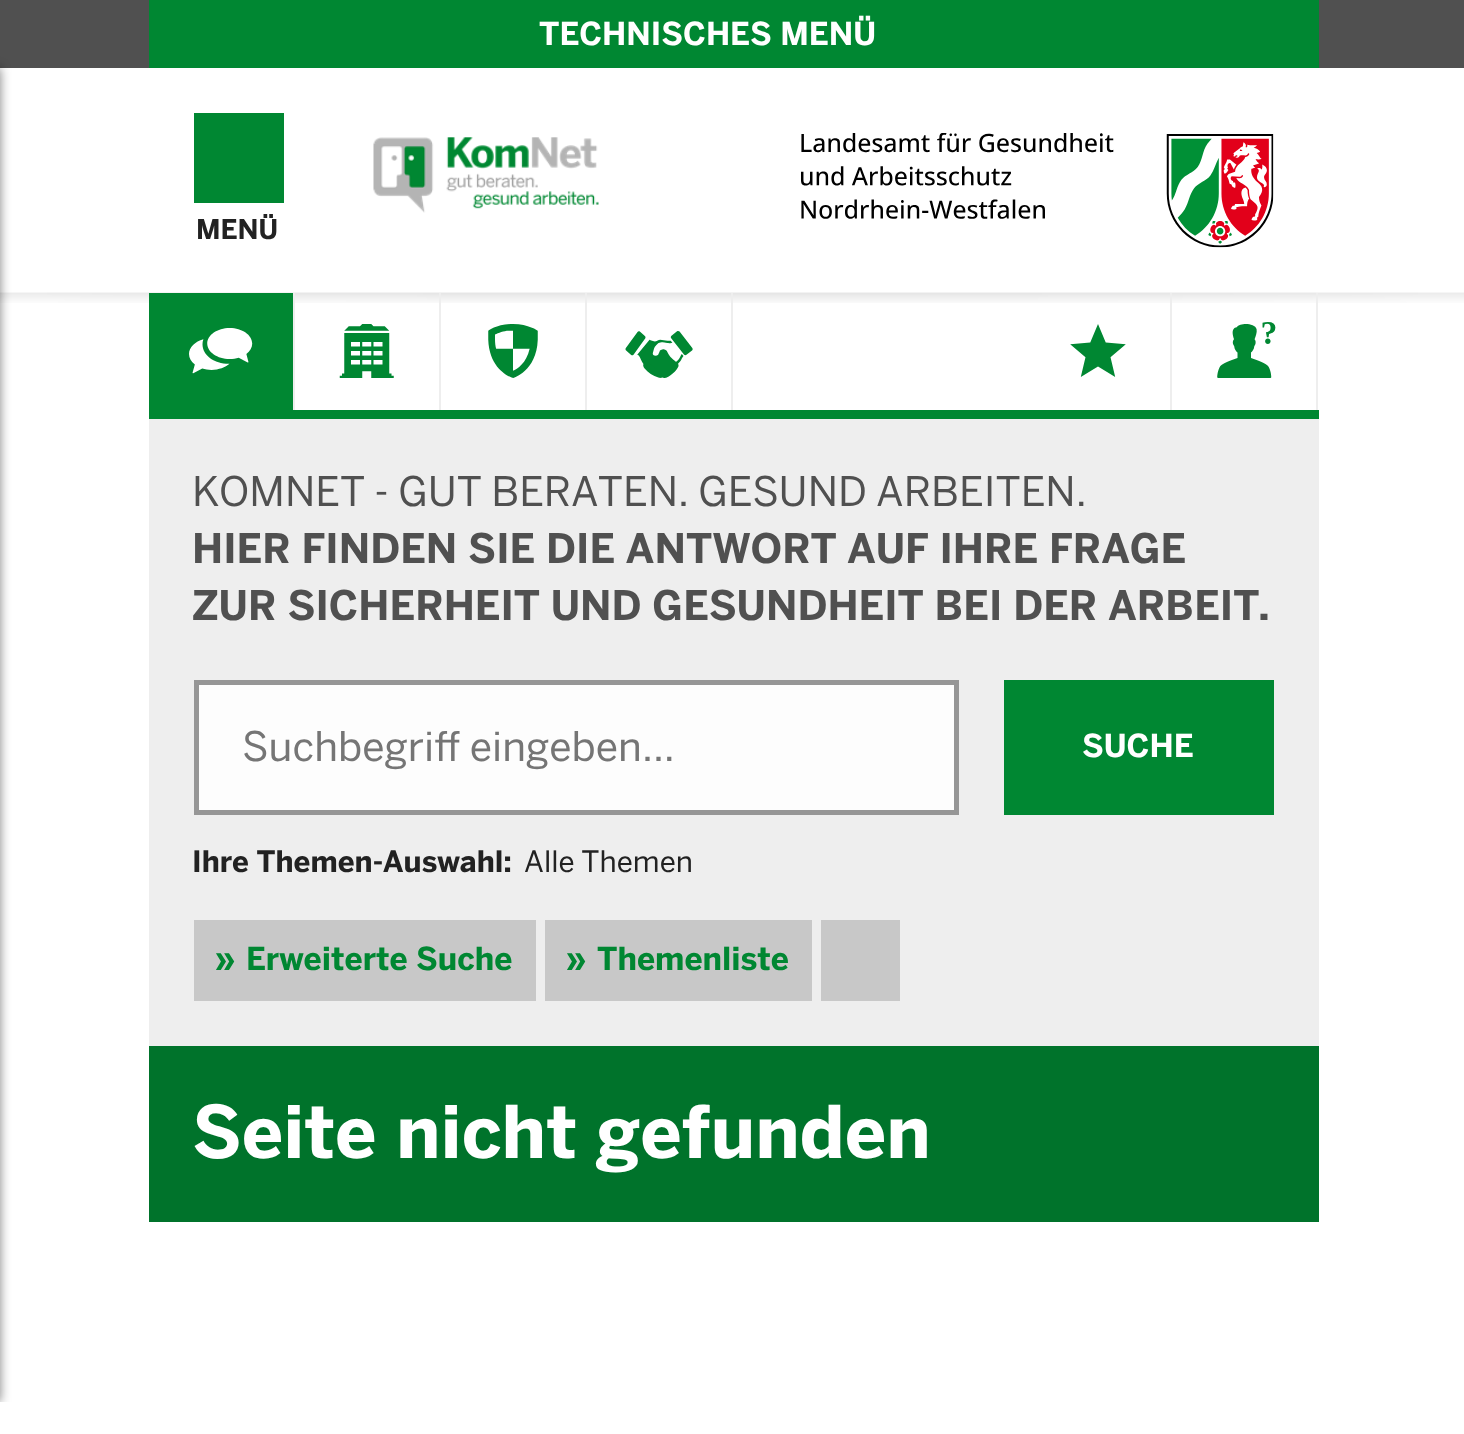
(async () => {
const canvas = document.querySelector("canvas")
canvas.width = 1464
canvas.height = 1434
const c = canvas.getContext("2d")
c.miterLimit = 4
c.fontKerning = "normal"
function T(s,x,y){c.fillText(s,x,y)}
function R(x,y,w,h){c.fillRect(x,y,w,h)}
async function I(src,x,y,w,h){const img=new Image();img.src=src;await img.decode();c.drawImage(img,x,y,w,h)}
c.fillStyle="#fff"
R(0,0,1464,1434)
c.fillStyle="#505050"
R(0,0,1464,68)
await I("3.png",0,292,1464,11)
c.save()
c.beginPath()
c.rect(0,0,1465,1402)
c.clip()
c.fillStyle="#00000080"
c.filter="blur(5.5px)"
c.beginPath()
c.rect(-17,68,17,1334)
c.fill()
c.filter="none"
c.restore()
c.fillStyle="#008732"
R(149,0,1170,68)
c.font="bold 31.5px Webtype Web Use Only"
c.fillStyle="#fff"
T("TECHNISCHES MENÜ",539,45)
await I("1.png",373,137,226,76)
await I("2.png",801,133,473,115)
c.fillStyle="#008732"
R(194,113,90,90)
c.font="bold 27px Webtype Web Use Only"
c.fillStyle="#222"
T("MENÜ",196,239)
c.fillStyle="#008732"
R(149,410,1170,9)
c.fillStyle="#eee"
R(293,293,2,117)
c.fillStyle="#008732"
R(149,293,144,117)
await I("4.png",189,328,64,46)
c.fillStyle="#eee"
R(439,293,2,117)
await I("5.png",339,324,55,54)
R(585,293,2,117)
await I("6.png",488,324,50,54)
R(731,293,2,117)
await I("7.png",625,331,68,47)
R(1170,293,2,117)
await I("8.png",1070,324,56,53)
R(1316,293,2,117)
await I("9.png",1217,322,59,56)
R(149,419,1170,627)
c.font="40.5px Webtype Web Use Only"
c.fillStyle="#505050"
T("KOMNET - GUT BERATEN. GESUND ARBEITEN.",192,506)
c.font="bold 40.5px Webtype Web Use Only"
T("HIER FINDEN SIE DIE ANTWORT AUF IHRE FRAGE",192,563)
T("ZUR SICHERHEIT UND GESUNDHEIT BEI DER ARBEIT.",192,620)
c.fillStyle="#fdfdfd"
c.beginPath()
c.rect(196.5,682.5,760,130)
c.fill()
c.strokeStyle="#969696"
c.lineWidth=5
c.stroke()
c.font="40.5px Webtype Web Use Only"
c.fillStyle="#757575"
T("Suchbegriff eingeben...",242,761)
c.fillStyle="#008732"
R(1004,680,270,135)
c.font="bold 31.5px Webtype Web Use Only"
c.fillStyle="#fff"
T("SUCHE",1082,757)
c.font="bold 29.25px Webtype Web Use Only"
c.fillStyle="#222"
T("Ihre Themen-Auswahl:",192,872)
c.font="29.25px Webtype Web Use Only"
T("Alle Themen",524,872)
c.fillStyle="#c8c8c8"
R(194,920,342,81)
c.font="bold 31.5px Webtype Web Use Only"
c.fillStyle="#008732"
T("»",215,970)
T("Erweiterte Suche",246,970)
c.fillStyle="#c8c8c8"
R(545,920,267,81)
c.fillStyle="#008732"
T("»",566,970)
T("Themenliste",597,970)
c.fillStyle="#c8c8c8"
R(821,920,79,81)
c.fillStyle="#00732b"
R(149,1046,1170,176)
c.font="bold 72px Webtype Web Use Only"
c.fillStyle="#fff"
T("Seite nicht gefunden",192,1158)
})()
